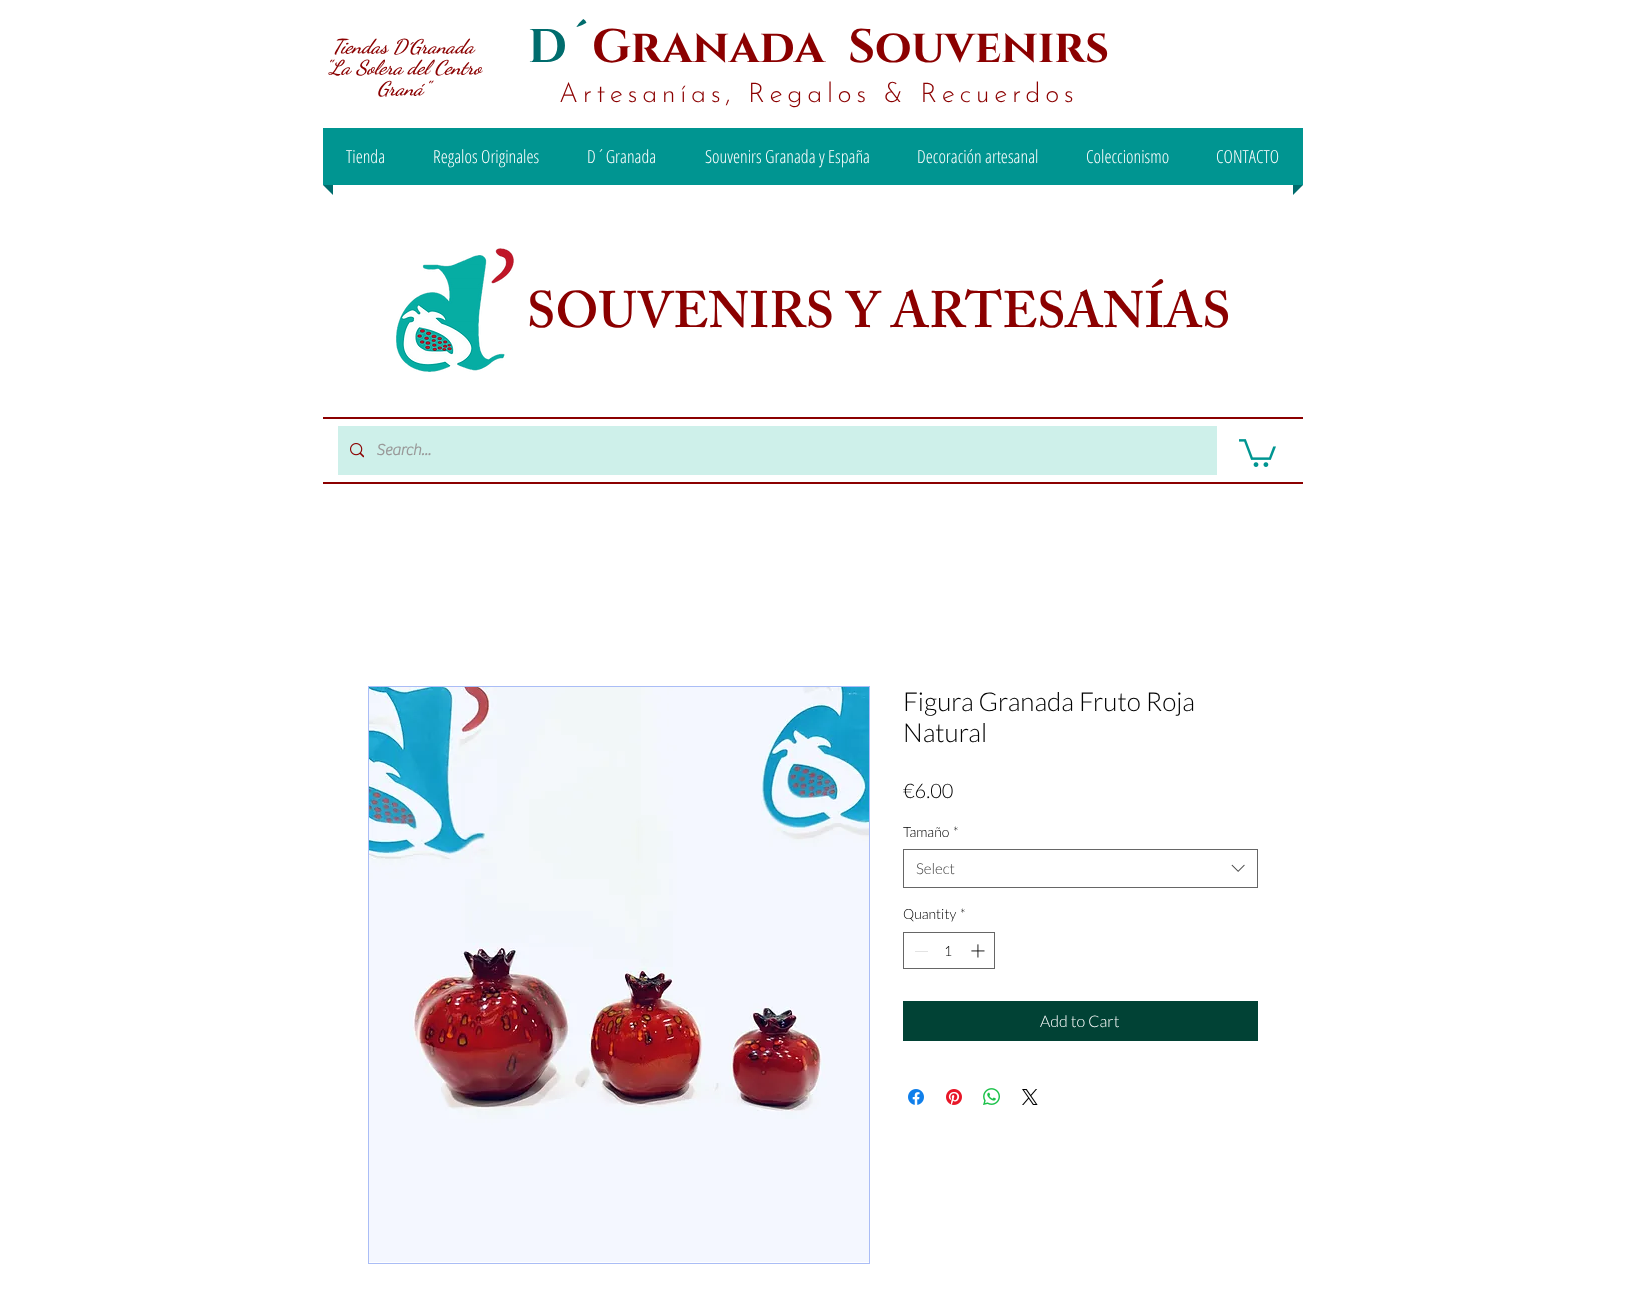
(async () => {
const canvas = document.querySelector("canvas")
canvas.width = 1625
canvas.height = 1301
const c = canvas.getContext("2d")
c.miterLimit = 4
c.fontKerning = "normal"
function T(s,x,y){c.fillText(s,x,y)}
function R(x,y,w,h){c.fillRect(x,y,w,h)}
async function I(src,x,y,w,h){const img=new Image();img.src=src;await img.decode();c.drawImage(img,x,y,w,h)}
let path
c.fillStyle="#fff"
R(0,0,1625,1301)
c.font="italic bold 20px Dancing Script"
c.fillStyle="#8b0000"
T("Tiendas D´Granada",332,53)
T("\"La Solera del Centro",324,74)
T("Graná\"",377,95)
c.font="bold 47px Cinzel"
c.fillStyle="#006c6d"
T("D´",528,62)
c.fillStyle="#8b0000"
T("Granada  Souvenirs",592,62)
c.letterSpacing="4.6px"
c.font="100 27px Josefin Sans"
T("Artesanías, Regalos & Recuerdos",559,102)
c.fillStyle="#009591"
R(323,128,980,57)
c.letterSpacing="0px"
c.font="300 18px Open Sans Condensed"
c.fillStyle="#fff"
T("Tienda",346,163)
T("Regalos Originales",433,163)
T("D´Granada",587,163)
T("Souvenirs Granada y España",705,163)
T("Decoración artesanal",917,163)
T("Coleccionismo",1086,163)
T("CONTACTO",1216,163)
c.fillStyle="#006c6d"
path = new Path2D("M323 185h10v10z")
c.fill(path)
path = new Path2D("M1293 185h10l-10 10z")
c.fill(path)
await I("1.png",396,248,118,124)
c.font="600 51px 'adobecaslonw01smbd'"
c.fillStyle="#8b0000"
T("SOUVENIRS Y ARTESANÍAS",527,327)
R(323,417,980,2)
c.fillStyle="#cef0ea"
R(338,426,879,49)
await I("2.png",350,443,14,15)
c.font="bold 16px 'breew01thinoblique'"
c.fillStyle="#999"
T("Search...",376,455)
await I("3.png",1239,439,37,28)
c.fillStyle="#8b0000"
R(323,482,980,2)
c.strokeStyle="#aabdf6"
c.strokeRect(368.5,686.5,501,577)
await I("4.png",369,687,500,575)
c.font="300 26px Lato"
c.fillStyle="#000"
T("Figura Granada Fruto Roja",903,711)
T("Natural",903,742)
c.font="300 20px Lato"
T("€6.00",903,798)
c.font="300 14px Lato"
T("Tamaño",903,837)
T("*",953,837)
c.strokeStyle="#666"
c.strokeRect(903.5,849.5,354,38)
c.font="300 15px Lato"
c.fillStyle="#444"
T("Select",916,874)
await I("5.png",1231,864,14,8)
c.font="300 14px Lato"
c.fillStyle="#000"
T("Quantity",903,919)
T("*",960,919)
c.strokeRect(903.5,932.5,91,36)
c.fillStyle="#e3e3e3"
R(915,951,13,1)
c.fillStyle="#000"
T("1",944,956)
await I("6.png",971,944,14,14)
c.fillStyle="#014235"
R(903,1001,355,40)
c.font="300 16px Lato"
c.fillStyle="#fff"
T("Add to Cart",1040,1027)
await I("7.png",908,1089,16,16)
await I("8.png",946,1089,16,16)
await I("9.png",983,1088,17,17)
await I("10.png",1022,1089,16,16)
})()
